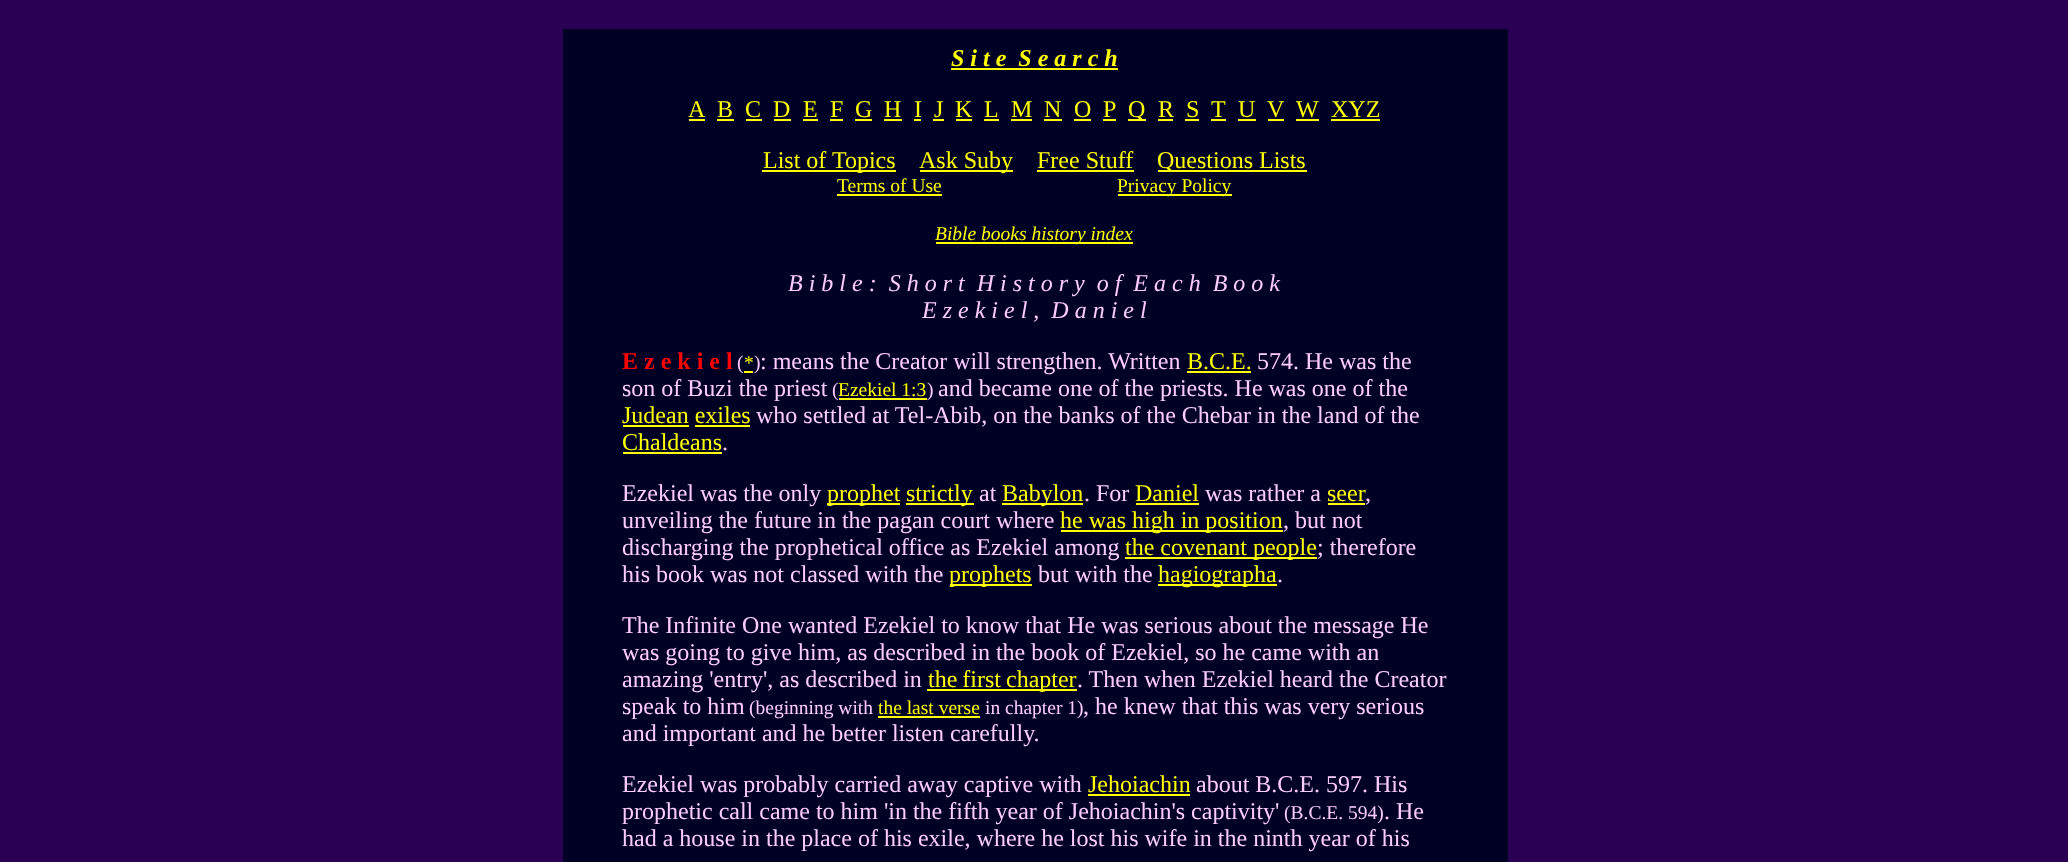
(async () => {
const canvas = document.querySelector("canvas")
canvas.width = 2068
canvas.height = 862
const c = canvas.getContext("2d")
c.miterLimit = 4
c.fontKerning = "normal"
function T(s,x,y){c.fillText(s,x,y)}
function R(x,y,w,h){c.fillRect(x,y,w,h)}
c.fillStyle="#290053"
R(0,0,2068,862)
c.fillStyle="#000024"
R(563,29,945,833)
c.font="italic bold 24px Liberation Serif"
c.fillStyle="#ff0"
T("S i t e  S e a r c h",951,66)
R(951,68,167,2)
c.font="24px Liberation Serif"
T("A",688,117)
R(689,119,16,2)
T("B",717,117)
R(717,119,17,2)
T("C",745,117)
R(746,119,16,2)
T("D",773,117)
R(774,119,17,2)
T("E",803,117)
R(803,119,15,2)
T("F",830,117)
R(830,119,13,2)
T("G",855,117)
R(855,119,17,2)
T("H",884,117)
R(884,119,18,2)
T("I",914,117)
R(914,119,7,2)
T("J",934,117)
R(933,119,11,2)
T("K",955,117)
R(956,119,16,2)
T("L",984,117)
R(984,119,15,2)
T("M",1011,117)
R(1011,119,21,2)
T("N",1044,117)
R(1044,119,18,2)
T("O",1074,117)
R(1074,119,17,2)
T("P",1103,117)
R(1103,119,13,2)
R(1128,119,18,2)
T("Q",1128,117)
T("R",1158,117)
R(1158,119,15,2)
T("S",1186,117)
R(1185,119,14,2)
T("T",1211,117)
R(1211,119,15,2)
T("U",1238,117)
R(1238,119,18,2)
T("V",1267,117)
R(1268,119,16,2)
T("W",1296,117)
R(1296,119,23,2)
T("XYZ",1331,117)
R(1331,119,49,2)
R(762,170,134,2)
T("List of Topics",763,168)
R(920,170,93,2)
T("Ask Suby",919,168)
T("Free Stuff",1037,168)
R(1037,170,97,2)
R(1158,170,149,2)
T("Questions Lists",1157,168)
c.font="19.5px Liberation Serif"
T("Terms of Use",837,192)
R(837,194,105,2)
R(1118,194,114,2)
T("Privacy Policy",1117,192)
R(936,242,197,2)
c.font="italic 19.5px Liberation Serif"
T("Bible books history index",935,240)
c.font="italic 24px Liberation Serif"
c.fillStyle="#fcf"
T("B i b l e :  S h o r t  H i s t o r y  o f  E a c h  B o o k",788,291)
T("E z e k i e l ,  D a n i e l",922,318)
c.font="bold 24px Liberation Serif"
c.fillStyle="#f00"
T("E z e k i e l",622,369)
c.font="19.5px Liberation Serif"
c.fillStyle="#fcf"
T("(",737,369)
c.fillStyle="#ff0"
R(744,371,9,2)
T("*",744,369)
c.fillStyle="#fcf"
T(")",754,369)
c.font="24px Liberation Serif"
T(": means the Creator will strengthen. Written",760,369)
c.fillStyle="#ff0"
T("B.C.E.",1187,369)
R(1187,371,64,2)
c.fillStyle="#fcf"
T("574. He was the",1257,369)
c.fillStyle="#290053"
T(".",767,369)
c.fillStyle="#fcf"
T("son of Buzi the priest",622,396)
c.font="19.5px Liberation Serif"
T("(",832,396)
c.fillStyle="#ff0"
T("Ezekiel 1:3",838,396)
c.fillStyle="#fcf"
T(")",927,396)
c.fillStyle="#ff0"
R(839,398,88,2)
c.font="24px Liberation Serif"
c.fillStyle="#fcf"
T("and became one of the priests. He was one of the",938,396)
c.fillStyle="#ff0"
T("Judean exiles",622,423)
R(623,425,66,2)
R(695,425,55,2)
c.fillStyle="#fcf"
T("who settled at Tel-Abib, on the banks of the Chebar in the land of the",756,423)
c.fillStyle="#ff0"
T("Chaldeans",622,450)
c.fillStyle="#fcf"
T(".",722,450)
c.fillStyle="#ff0"
R(623,452,99,2)
c.fillStyle="#fcf"
T("Ezekiel was the only",622,501)
c.fillStyle="#ff0"
R(827,503,73,2)
T("prophet",827,501)
R(906,503,68,2)
T("strictly",906,501)
c.fillStyle="#fcf"
T("at",979,501)
c.fillStyle="#ff0"
R(1002,503,81,2)
T("Babylon",1002,501)
c.fillStyle="#fcf"
T(". For",1084,501)
c.fillStyle="#ff0"
T("Daniel",1135,501)
R(1136,503,63,2)
c.fillStyle="#fcf"
T("was rather a",1205,501)
c.fillStyle="#ff0"
T("seer",1327,501)
c.fillStyle="#fcf"
T(",",1365,501)
c.fillStyle="#ff0"
R(1328,503,37,2)
c.fillStyle="#fcf"
T("unveiling the future in the pagan court where",622,528)
c.fillStyle="#ff0"
R(1061,530,222,2)
T("he was high in position",1060,528)
c.fillStyle="#fcf"
T(", but not",1283,528)
T("discharging the prophetical office as Ezekiel among",622,555)
c.fillStyle="#ff0"
R(1125,557,192,2)
T("the covenant people",1125,555)
c.fillStyle="#fcf"
T("; therefore",1317,555)
T("his book was not classed with the",622,582)
c.fillStyle="#ff0"
R(950,584,82,2)
T("prophets",949,582)
c.fillStyle="#fcf"
T("but with the",1038,582)
c.fillStyle="#ff0"
R(1158,584,119,2)
T("hagiographa",1158,582)
c.fillStyle="#fcf"
T(".",1277,582)
T("The Infinite One wanted Ezekiel to know that He was serious about the message He",622,633)
T("was going to give him, as described in the book of Ezekiel, so he came with an",622,660)
T("amazing 'entry', as described in",622,687)
c.fillStyle="#ff0"
R(927,689,150,2)
c.wordSpacing="-1px"
T("the first chapter",928,687)
c.wordSpacing="0px"
c.fillStyle="#fcf"
T(". Then when Ezekiel heard the Creator",1077,687)
T("speak to him",622,714)
c.font="19.5px Liberation Serif"
T("(beginning with",749,714)
c.fillStyle="#ff0"
R(878,716,102,2)
T("the last verse",878,714)
c.fillStyle="#fcf"
T("in chapter 1)",985,714)
c.font="24px Liberation Serif"
T(", he knew that this was very serious",1083,714)
T("and important and he better listen carefully.",622,741)
T("Ezekiel was probably carried away captive with",622,792)
c.fillStyle="#ff0"
T("Jehoiachin",1088,792)
R(1088,794,102,2)
c.fillStyle="#fcf"
T("about B.C.E. 597. His",1196,792)
T("prophetic call came to him 'in the fifth year of Jehoiachin's captivity'",622,819)
c.font="19.5px Liberation Serif"
T("(B.C.E. 594)",1284,819)
c.font="24px Liberation Serif"
T(". He",1384,819)
T("had a house in the place of his exile, where he lost his wife in the ninth year of his",622,846)
})()
